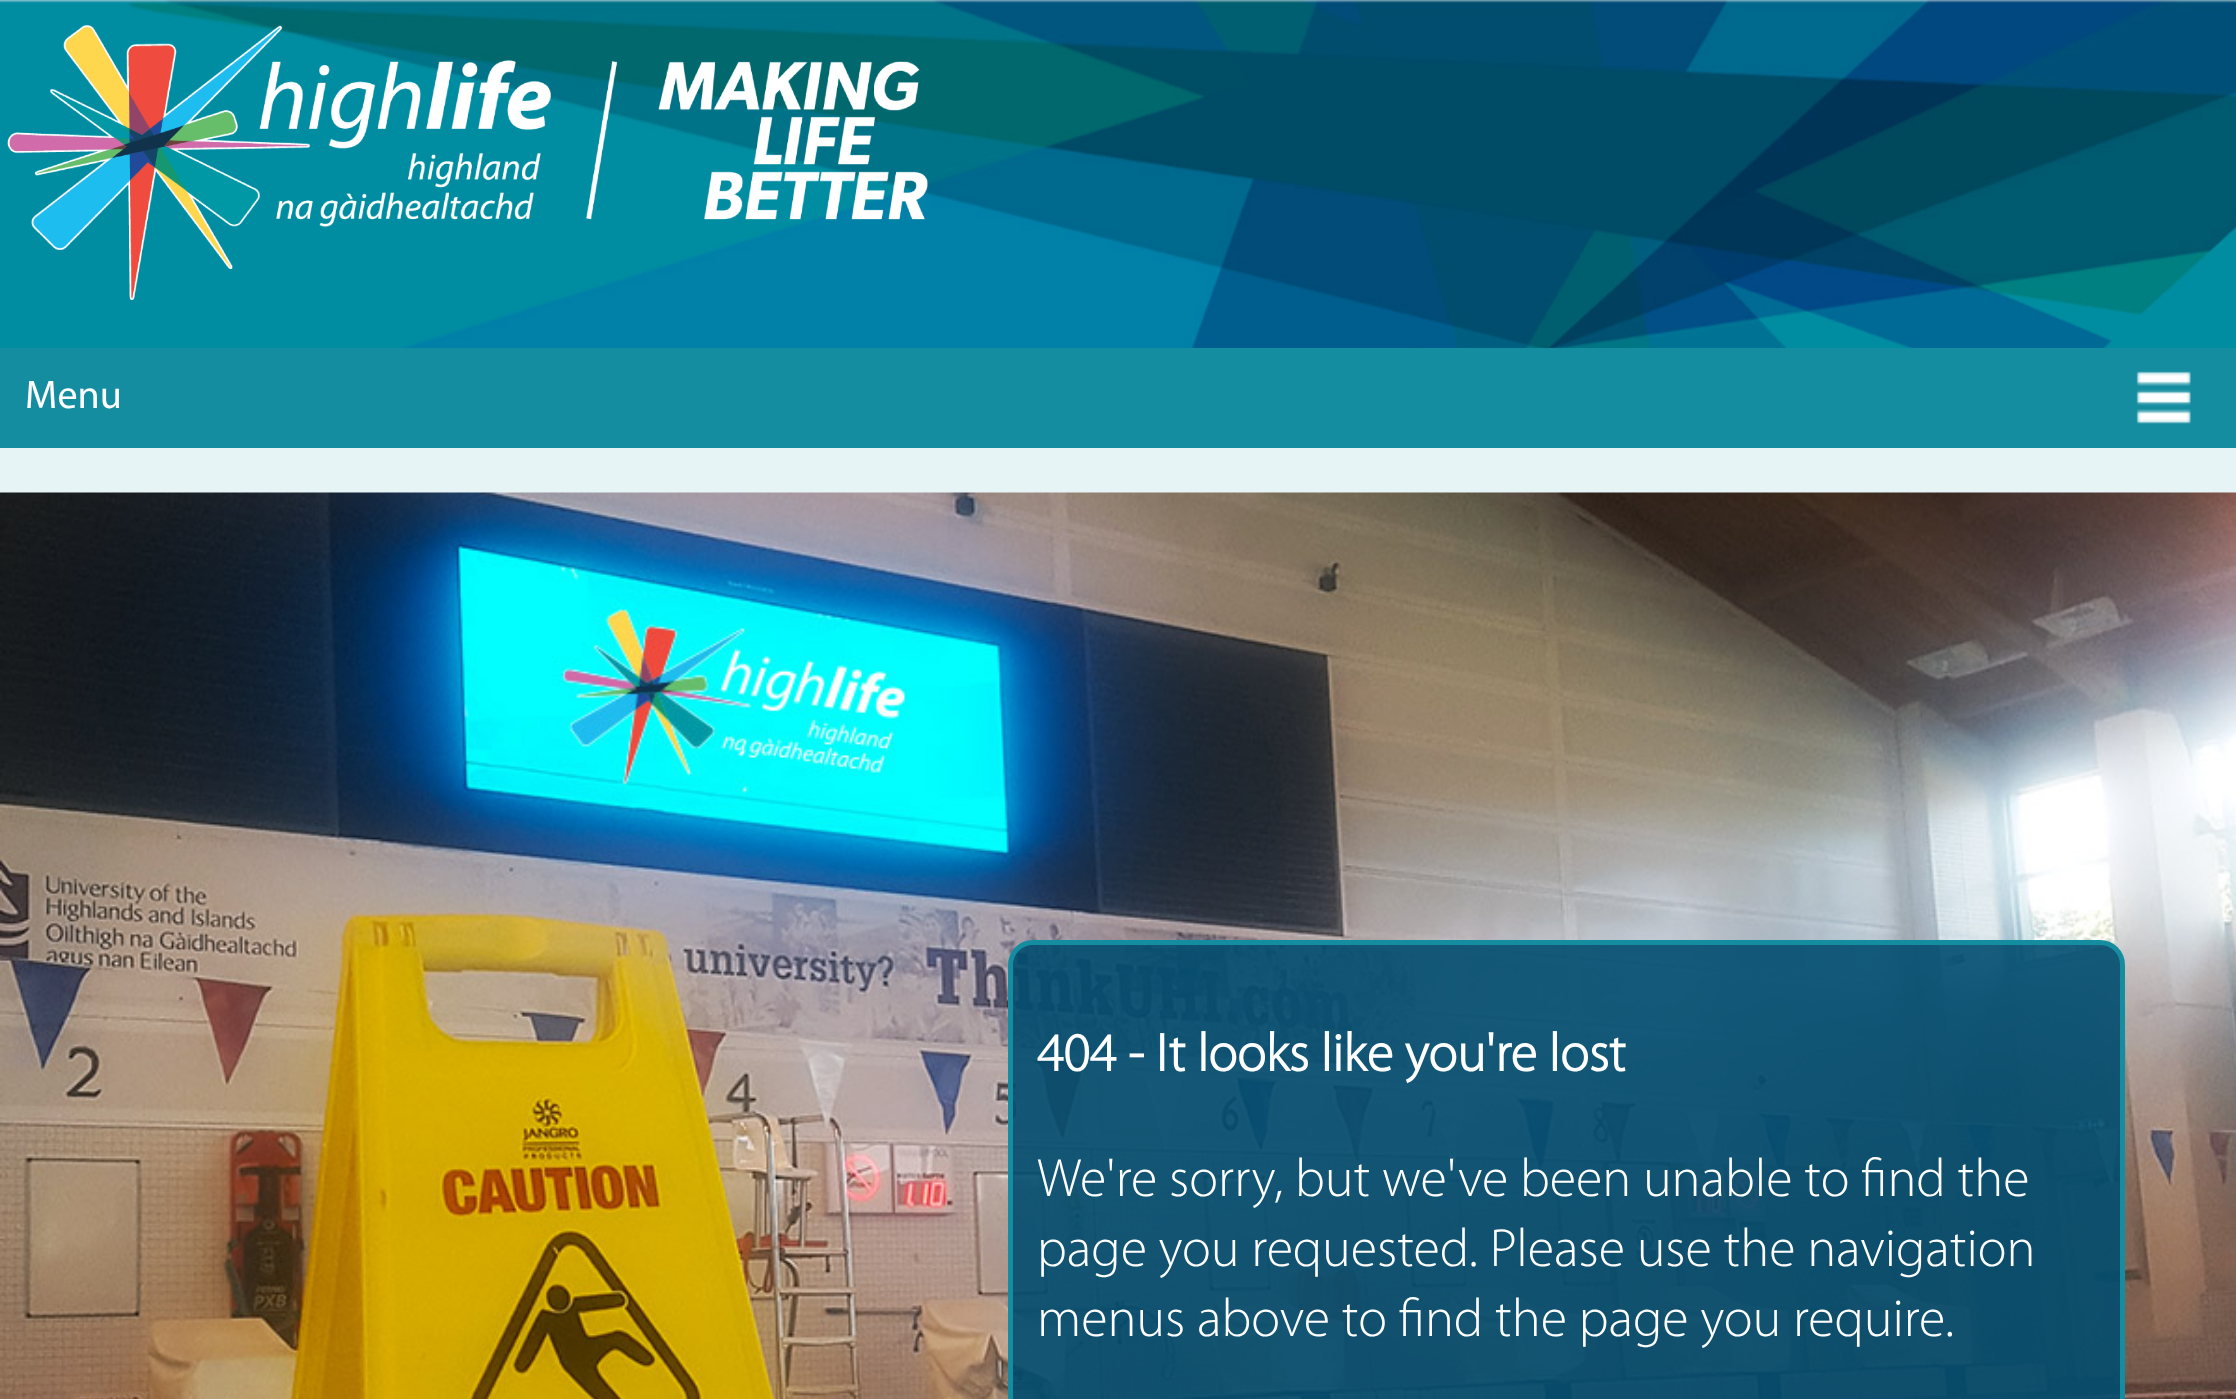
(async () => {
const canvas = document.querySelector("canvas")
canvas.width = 2236
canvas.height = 1399
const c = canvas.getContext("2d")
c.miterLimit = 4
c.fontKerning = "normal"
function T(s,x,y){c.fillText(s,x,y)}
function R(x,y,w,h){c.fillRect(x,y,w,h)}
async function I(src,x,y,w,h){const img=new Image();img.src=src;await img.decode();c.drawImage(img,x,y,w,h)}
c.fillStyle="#e6f4f5"
R(0,0,2236,1399)
await I("1.png",0,0,2236,348)
await I("2.png",7,25,921,275)
c.fillStyle="#148da0"
R(0,348,2236,100)
await I("3.png",2136,371,55,53)
c.font="40px Myriad"
c.fillStyle="#fff"
T("Menu",25,408)
await I("4.png",0,492,2236,907)
c.fillStyle="#014d6fe6"
c.beginPath()
c.roundRect(1010.5,942.5,1112,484,22.5)
c.fill()
c.strokeStyle="#148da0"
c.lineWidth=5
c.stroke()
c.font="bold 54px Myriad"
c.fillStyle="#fff"
T("404 - It looks like you're lost",1037,1071)
c.font="300 54px Myriad"
T("We're sorry, but we've been unable to find the",1037,1196)
T("page you requested. Please use the navigation",1037,1266)
T("menus above to find the page you require.",1037,1336)
})()
